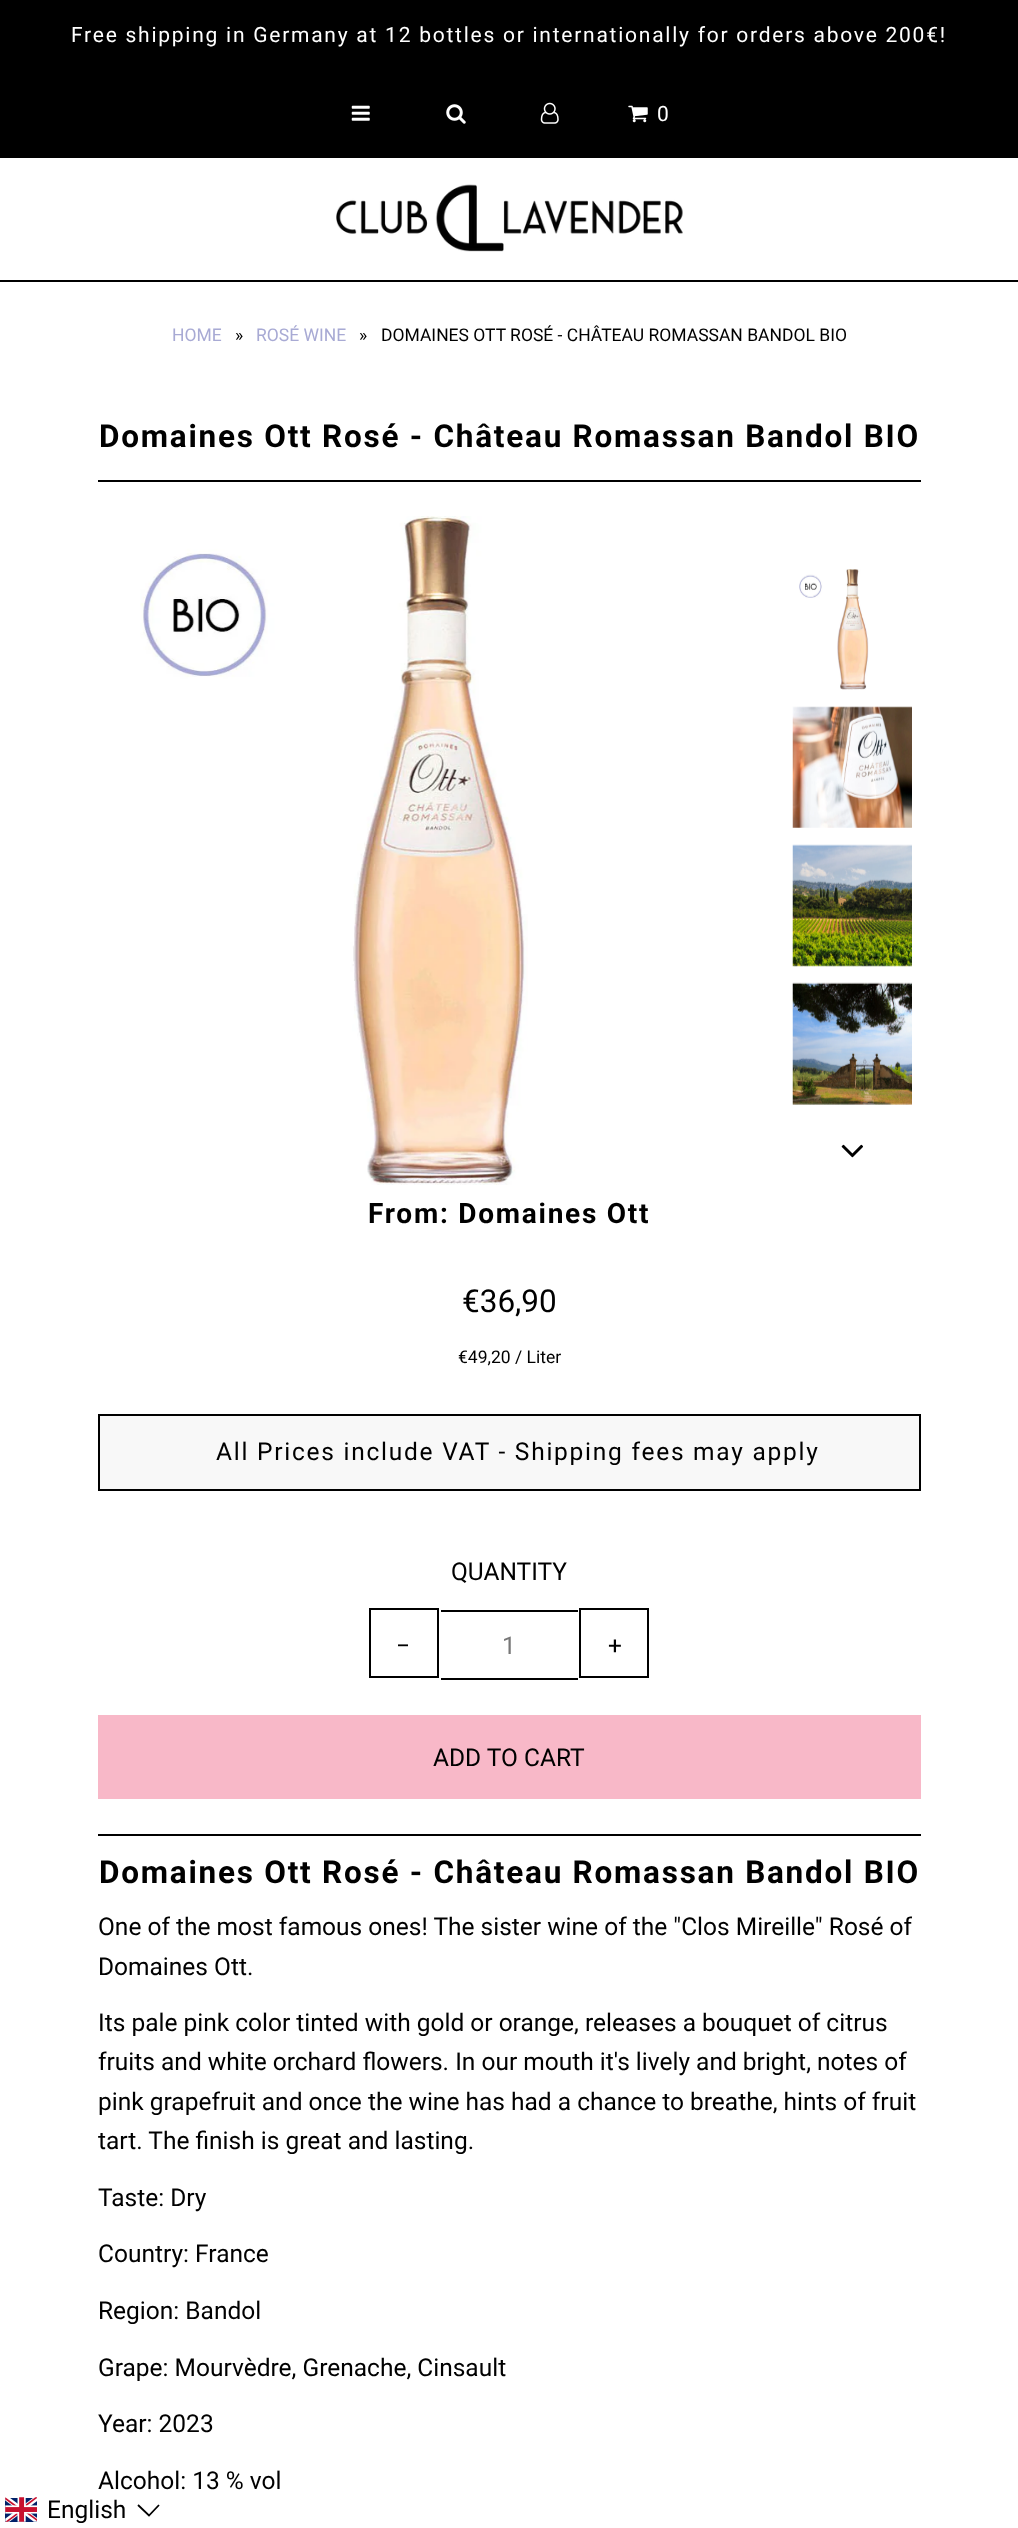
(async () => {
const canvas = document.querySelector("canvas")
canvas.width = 1018
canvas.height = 2528
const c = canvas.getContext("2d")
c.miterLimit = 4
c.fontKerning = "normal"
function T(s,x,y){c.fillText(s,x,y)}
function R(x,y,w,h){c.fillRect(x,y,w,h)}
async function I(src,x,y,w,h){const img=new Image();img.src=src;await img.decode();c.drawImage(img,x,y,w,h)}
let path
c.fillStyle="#fff"
R(0,0,1018,2528)
c.fillStyle="#000"
R(0,280,1018,2)
R(0,0,1018,158)
c.letterSpacing="1.75px"
c.font="21px Roboto"
c.fillStyle="#fff"
T("Free shipping in Germany at 12 bottles or internationally for orders above 200€!",71,42)
await I("1.png",351,105,19,16)
await I("2.png",446,104,20,20)
await I("3.png",540,102,19,22)
await I("4.png",628,105,20,18)
T("0",657,121)
await I("5.png",336,184,347,68)
c.letterSpacing="0px"
c.font="17.5px Roboto"
c.fillStyle="#a8aad4"
T("HOME",172,341)
c.fillStyle="#000"
T("»",235,341)
c.fillStyle="#a8aad4"
T("ROSÉ WINE",256,341)
c.fillStyle="#000"
T("»",359,341)
T("DOMAINES OTT ROSÉ - CHÂTEAU ROMASSAN BANDOL BIO",381,341)
R(98,480,823,2)
c.letterSpacing="1.75px"
c.font="bold 31.5px Roboto"
T("Domaines Ott Rosé - Château Romassan Bandol BIO",99,447)
await I("6.png",140,516,388,669)
await I("7.png",799,569,70,121)
await I("8.png",792,706,120,122)
await I("9.png",792,844,120,123)
await I("10.png",792,982,120,123)
await I("11.png",841,1144,22,14)
c.font="bold 28px Roboto"
T("From: Domaines Ott",368,1223)
c.letterSpacing="0px"
c.font="31.5px Roboto"
T("€36,90",462,1312)
c.font="17.5px Roboto"
T("€49,20 / Liter",458,1363)
c.fillStyle="#f8f8f8"
c.beginPath()
c.rect(99,1415,821,75)
c.fill()
c.strokeStyle="#000"
c.lineWidth=2
c.stroke()
c.letterSpacing="1.75px"
c.font="24.5px Roboto"
c.fillStyle="#000"
T("All Prices include VAT - Shipping fees may apply",216,1460)
R(98,1834,823,2)
c.letterSpacing="0px"
T("QUANTITY",451,1580)
c.strokeRect(370,1609,68,68)
T("−",396,1654)
R(441,1610,137,2)
R(441,1678,137,2)
c.fillStyle="#777"
T("1",502,1654)
c.strokeRect(580,1609,68,68)
c.fillStyle="#000"
T("+",608,1654)
c.fillStyle="#f8b8c8"
R(98,1715,823,84)
c.fillStyle="#000"
T("ADD TO CART",433,1766)
c.letterSpacing="1.75px"
c.font="bold 31.5px Roboto"
T("Domaines Ott Rosé - Château Romassan Bandol BIO",99,1883)
c.letterSpacing="0px"
c.font="24.5px Roboto"
T("One of the most famous ones! The sister wine of the \"Clos Mireille\" Rosé of",98,1935)
T("Domaines Ott.",98,1975)
T("Its pale pink color tinted with gold or orange, releases a bouquet of citrus",98,2031)
T("fruits and white orchard flowers. In our mouth it's lively and bright, notes of",98,2070)
T("pink grapefruit and once the wine has had a chance to breathe, hints of fruit",98,2110)
T("tart. The finish is great and lasting.",98,2149)
T("Taste: Dry",98,2206)
T("Country: France",98,2262)
T("Region: Bandol",98,2319)
T("Grape: Mourvèdre, Grenache, Cinsault",98,2376)
T("Year: 2023",98,2432)
T("Alcohol: 13 % vol",98,2489)
await I("12.png",5,2497,32,25)
T("English",47,2518)
path = new Path2D("M138 2505l11 10.5l10-10.5")
c.lineWidth=1.8
c.stroke(path)
})()
